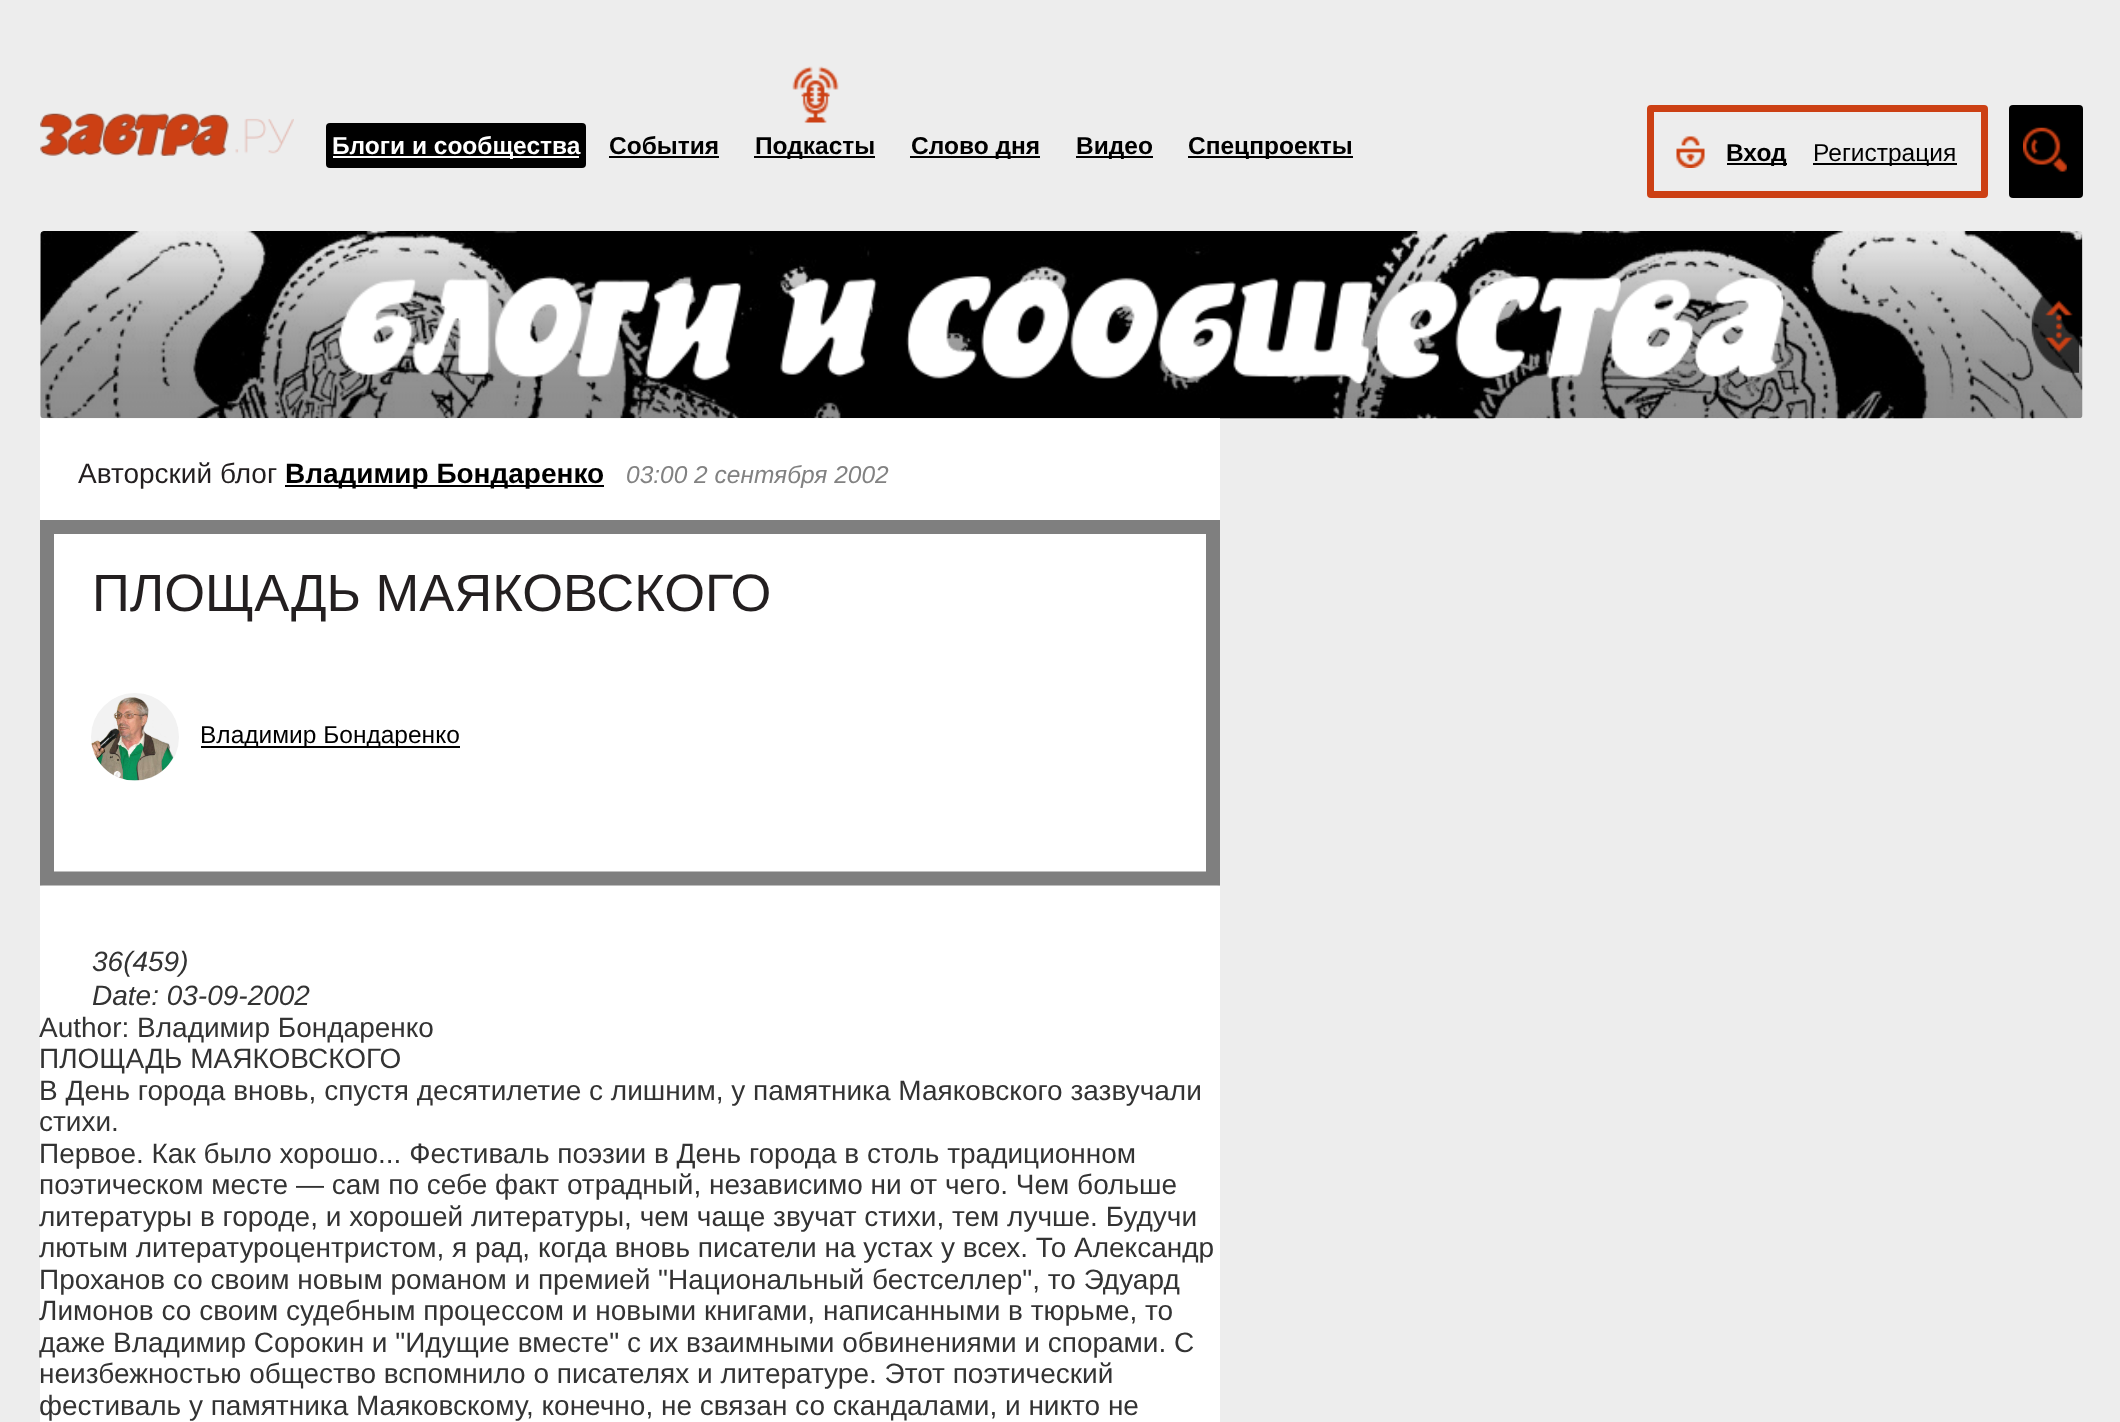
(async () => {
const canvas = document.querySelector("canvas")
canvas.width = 2120
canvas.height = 1422
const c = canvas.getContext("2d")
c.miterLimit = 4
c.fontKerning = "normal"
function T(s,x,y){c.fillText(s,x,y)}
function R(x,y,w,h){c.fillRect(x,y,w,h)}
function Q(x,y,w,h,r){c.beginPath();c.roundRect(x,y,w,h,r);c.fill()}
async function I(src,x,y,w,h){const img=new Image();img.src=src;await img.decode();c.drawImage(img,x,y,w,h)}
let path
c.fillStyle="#ededed"
R(0,0,2120,1422)
await I("1.png",40,113,254,43)
c.fillStyle="#000"
Q(326,123,260,45,4)
c.fillStyle="#fff"
R(333,156,246,2)
c.font="bold 24.5px Liberation Sans"
T("Блоги и сообщества",332,154)
c.fillStyle="#000"
T("События",609,154)
R(609,156,110,2)
await I("2.png",792,66,47,57)
R(754,156,121,2)
T("Подкасты",755,154)
R(910,156,130,2)
T("Слово дня",911,154)
R(1076,156,77,2)
T("Видео",1076,154)
R(1188,156,165,2)
T("Спецпроекты",1188,154)
c.beginPath()
c.roundRect(1650.5,108.5,334,86,.5)
c.strokeStyle="#cc4014"
c.lineWidth=7
c.stroke()
await I("3.png",1676,136,29,32)
R(1727,163,60,2)
T("Вход",1726,161)
R(1813,163,144,2)
c.font="24.5px Liberation Sans"
T("Регистрация",1813,161)
Q(2009,105,74,93,4)
await I("4.png",2023,127,44,45)
await I("5.png",40,231,2043,188)
c.fillStyle="#fff"
R(40,418,1180,102)
await I("6.png",40,231,2043,188)
await I("7.png",339,276,1445,108)
await I("8.png",2031,293,48,80)
c.font="28px Liberation Sans"
c.fillStyle="#231f20"
T("Авторский блог",78,483)
c.fillStyle="#000"
R(285,485,319,2)
c.font="bold 28px Liberation Sans"
T("Владимир Бондаренко",285,483)
c.font="italic 24.5px Liberation Sans"
c.fillStyle="#828282"
T("03:00 2 сентября 2002",626,483)
c.fillStyle="#fff"
Q(40,520,1180,366,4)
path = new Path2D("M47 527h1166v351.5h-1166z")
c.strokeStyle="#7f7f7f"
c.lineWidth=14
c.stroke(path)
c.font="52.5px Liberation Sans"
c.fillStyle="#231f20"
T("ПЛОЩАДЬ МАЯКОВСКОГО",92,611)
c.fillStyle="#f2f2f2"
c.beginPath()
c.arc(135,737,46.5,0,7)
c.fill()
c.strokeStyle="#fff"
c.lineWidth=5
c.stroke()
await I("9.png",91,697,83,84)
c.fillStyle="#000"
R(201,746,259,2)
c.font="24.5px Liberation Sans"
T("Владимир Бондаренко",200,743)
c.fillStyle="#fff"
R(40,886,1180,536)
c.font="italic 28px Liberation Sans"
c.fillStyle="#333"
T("36(459)",92,971)
T("Date: 03-09-2002",92,1005)
c.font="28px Liberation Sans"
T("Author: Владимир Бондаренко",39,1037)
T("ПЛОЩАДЬ МАЯКОВСКОГО",39,1068)
T("В День города вновь, спустя десятилетие с лишним, у памятника Маяковского зазвучали",39,1100)
T("стихи.",39,1131)
T("Первое. Как было хорошо... Фестиваль поэзии в День города в столь традиционном",39,1163)
T("поэтическом месте — сам по себе факт отрадный, независимо ни от чего. Чем больше",39,1194)
T("литературы в городе, и хорошей литературы, чем чаще звучат стихи, тем лучше. Будучи",39,1226)
T("лютым литературоцентристом, я рад, когда вновь писатели на устах у всех. То Александр",39,1257)
T("Проханов со своим новым романом и премией \"Национальный бестселлер\", то Эдуард",39,1289)
T("Лимонов со своим судебным процессом и новыми книгами, написанными в тюрьме, то",39,1320)
T("даже Владимир Сорокин и \"Идущие вместе\" с их взаимными обвинениями и спорами. С",39,1352)
T("неизбежностью общество вспомнило о писателях и литературе. Этот поэтический",39,1383)
T("фестиваль у памятника Маяковскому, конечно, не связан со скандалами, и никто не",39,1415)
})()
